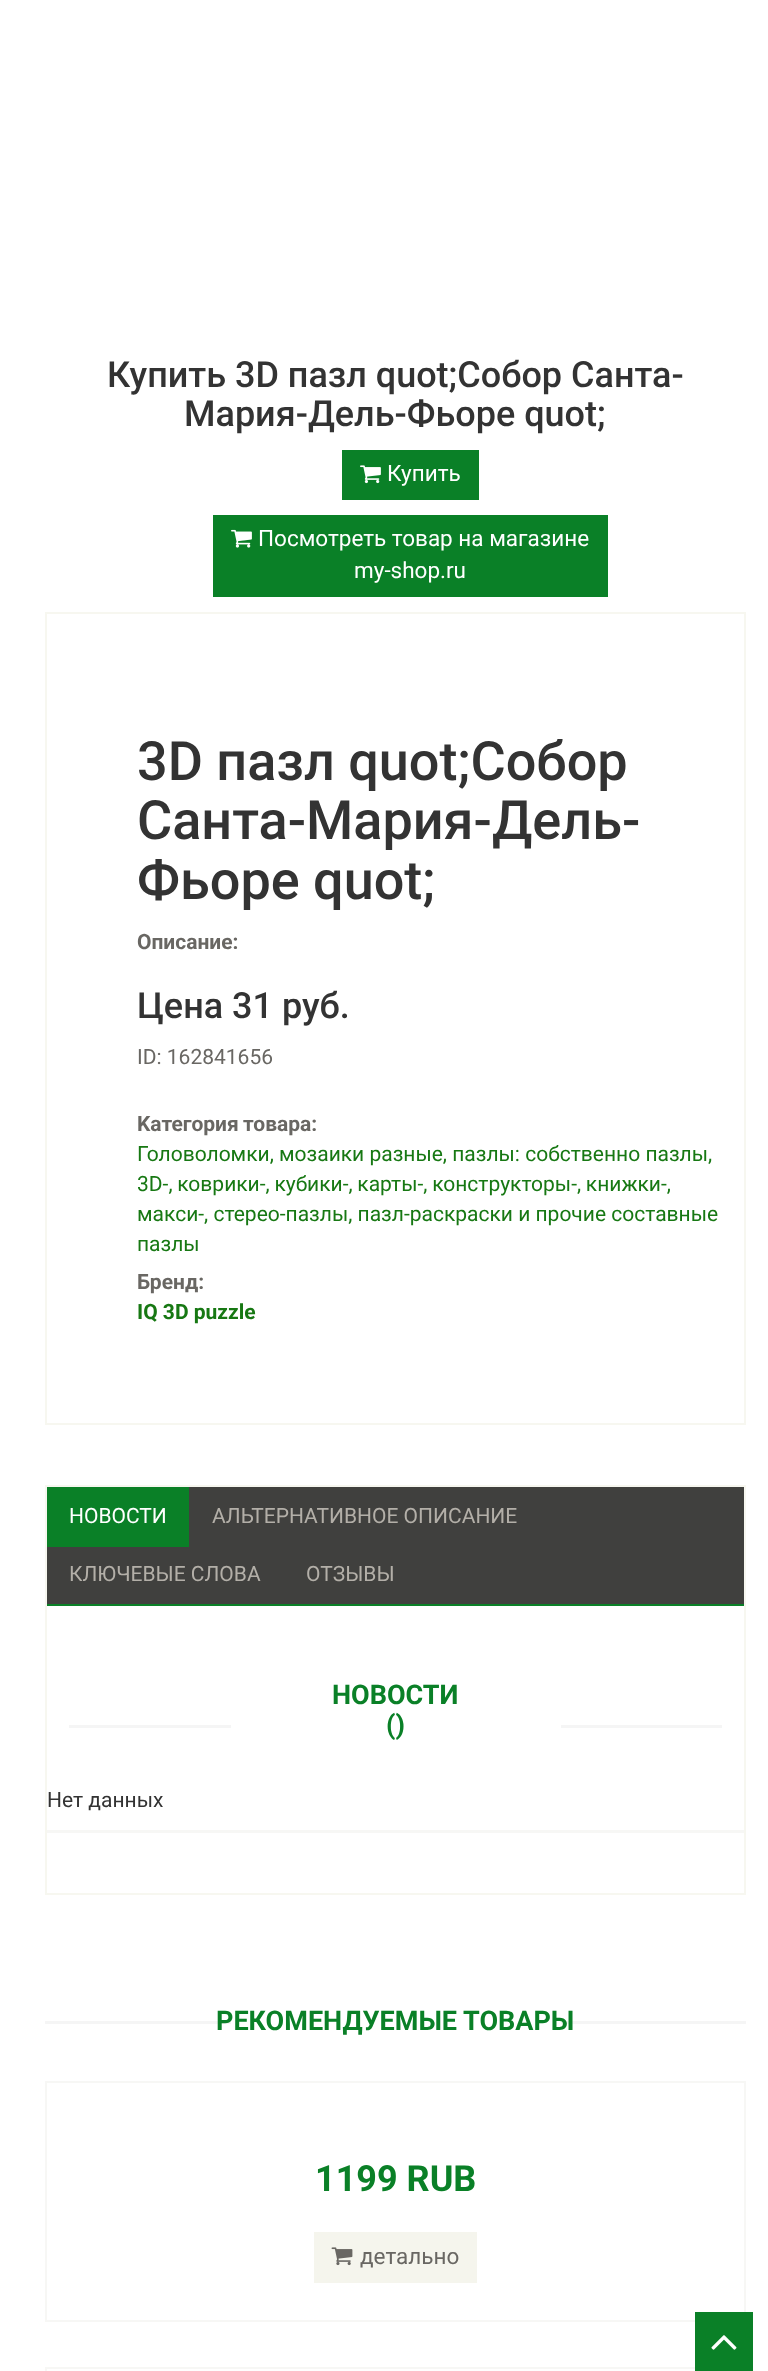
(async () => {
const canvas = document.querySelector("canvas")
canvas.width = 768
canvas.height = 2371
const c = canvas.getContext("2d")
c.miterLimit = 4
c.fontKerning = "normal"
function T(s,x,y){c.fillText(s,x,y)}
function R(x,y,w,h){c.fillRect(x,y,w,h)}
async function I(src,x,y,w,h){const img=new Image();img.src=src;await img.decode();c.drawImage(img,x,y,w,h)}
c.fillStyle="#fff"
R(0,0,768,2371)
c.font="500 36px Roboto"
c.fillStyle="#333"
T("Купить 3D пазл quot;Собор Санта-",107,387)
T("Мария-Дель-Фьоре quot;",184,426)
c.fillStyle="#0a8027"
R(342,450,137,50)
await I("1.png",360,465,21,19)
c.font="22.5px Roboto"
c.fillStyle="#fff"
T("Купить",387,481)
c.fillStyle="#0a8027"
R(213,515,395,82)
await I("2.png",231,529,21,19)
c.fillStyle="#fff"
T("Посмотреть товар на магазине",258,546)
T("my-shop.ru",354,578)
c.strokeStyle="#f7f7f0"
c.lineWidth=2
c.strokeRect(46,613,699,811)
c.font="500 54px Roboto"
c.fillStyle="#333"
T("3D пазл quot;Собор",137,780)
T("Санта-Мария-Дель-",137,839)
T("Фьоре quot;",137,899)
c.font="bold 21px Roboto"
c.fillStyle="#696763"
T("Oписание:",137,949)
c.font="500 36px Roboto"
c.fillStyle="#333"
T("Цена 31 руб.",137,1018)
c.font="21px Roboto"
c.fillStyle="#696763"
T("ID: 162841656",137,1064)
c.wordSpacing="-1px"
c.font="bold 21px Roboto"
T("Kатегория товара:",137,1131)
c.wordSpacing="0px"
c.font="21px Roboto"
c.fillStyle="#177813"
T("Головоломки, мозаики разные, пазлы: собственно пазлы,",137,1161)
c.wordSpacing="-0.5px"
T("3D-, коврики-, кубики-, карты-, конструкторы-, книжки-,",137,1191)
c.wordSpacing="0px"
T("макси-, стерео-пазлы, пазл-раскраски и прочие составные",137,1221)
T("пазлы",137,1251)
c.font="bold 21px Roboto"
c.fillStyle="#696763"
T("Бренд:",137,1289)
c.fillStyle="#177813"
T("IQ 3D puzzle",137,1319)
c.fillStyle="#f5f5f5"
R(69,1725,653,3)
c.fillStyle="#fff"
R(231,1725,330,3)
c.strokeRect(46,1486,699,408)
c.fillStyle="#40403e"
R(47,1487,697,117)
c.fillStyle="#0a8027"
R(47,1604,697,2)
R(47,1487,142,60)
c.font="21px Roboto"
c.fillStyle="#fff"
T("НОВОСТИ",69,1523)
c.fillStyle="#b3afa8"
T("АЛЬТЕРНАТИВНОЕ ОПИСАНИЕ",212,1523)
T("КЛЮЧЕВЫЕ СЛОВА",69,1581)
T("ОТЗЫВЫ",306,1581)
c.font="bold 27px Roboto"
c.fillStyle="#0a8027"
T("НОВОСТИ",332,1704)
T("()",386,1734)
c.font="21px Roboto"
c.fillStyle="#333"
T("Нет данных",47,1807)
c.fillStyle="#f7f7f5"
R(47,1830,697,3)
c.fillStyle="#f5f5f5"
R(45,2021,701,3)
c.fillStyle="#fff"
R(231,2021,330,3)
c.font="bold 27px Roboto"
c.fillStyle="#0a8027"
T("РЕКОМЕНДУЕМЫЕ ТОВАРЫ",216,2030)
c.strokeStyle="#f7f7f5"
c.strokeRect(46,2082,699,239)
c.font="bold 36px Roboto"
T("1199 RUB",315,2191)
c.fillStyle="#f5f5ed"
R(314,2232,163,51)
await I("3.png",331,2247,22,19)
c.font="22.5px Roboto"
c.fillStyle="#696763"
T("детально",360,2264)
c.strokeRect(46,2368,699,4)
c.fillStyle="#0a8027"
R(695,2312,58,59)
await I("4.png",711,2335,26,15)
})()
